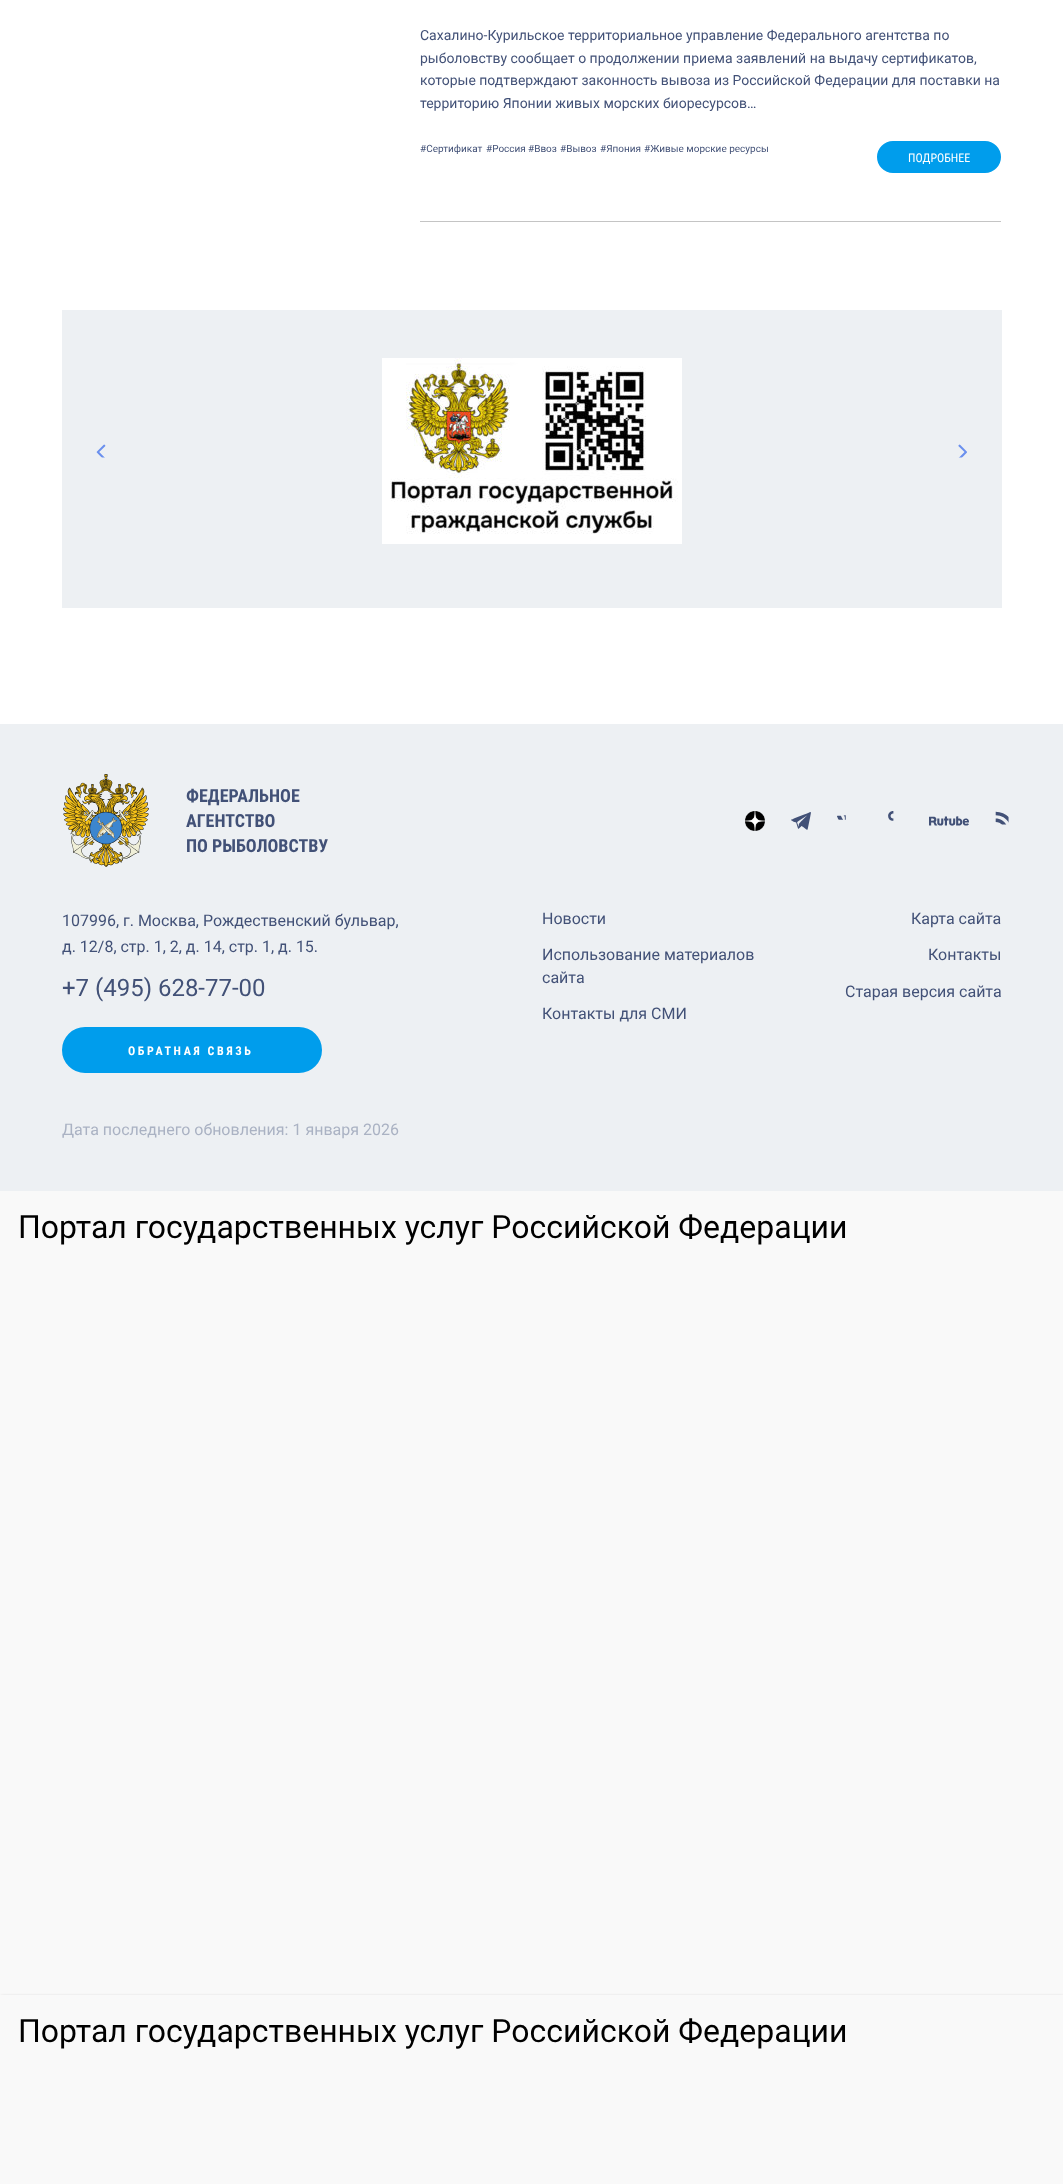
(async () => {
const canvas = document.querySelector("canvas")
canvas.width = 1063
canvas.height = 2184
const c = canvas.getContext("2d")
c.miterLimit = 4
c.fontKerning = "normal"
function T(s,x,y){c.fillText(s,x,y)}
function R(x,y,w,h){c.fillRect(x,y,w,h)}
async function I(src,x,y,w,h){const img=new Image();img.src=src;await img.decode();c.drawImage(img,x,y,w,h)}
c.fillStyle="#fff"
R(0,0,1063,2184)
c.fillStyle="#c4c4c4"
R(420,221,581,1)
c.font="14px Roboto"
c.fillStyle="#425177"
T("Сахалино-Курильское территориальное управление Федерального агентства по",420,40)
T("рыболовству сообщает о продолжении приема заявлений на выдачу сертификатов,",420,63)
T("которые подтверждают законность вывоза из Российской Федерации для поставки на",420,85)
T("территорию Японии живых морских биоресурсов…",420,108)
c.font="10px Roboto"
T("#Сертификат",420,152)
T("#Россия",486,152)
T("#Ввоз",528,152)
T("#Вывоз",560,152)
T("#Япония",600,152)
T("#Живые морские ресурсы",644,152)
c.fillStyle="#009dec"
c.beginPath()
c.roundRect(878,142,122,30,15)
c.fill()
c.strokeStyle="#009dec"
c.lineWidth=2
c.stroke()
c.font="12px Roboto Condensed"
c.fillStyle="#fff"
T("ПОДРОБНЕЕ",908,162)
c.fillStyle="#edf0f3"
R(62,310,940,298)
await I("1.png",96,444,10,14)
await I("2.png",382,358,300,186)
await I("3.png",958,444,9,14)
R(0,724,1063,467)
await I("4.png",63,774,86,93)
c.font="bold 18px Roboto Condensed"
c.fillStyle="#425177"
T("ФЕДЕРАЛЬНОЕ",186,802)
T("АГЕНТСТВО",186,827)
T("ПО РЫБОЛОВСТВУ",186,852)
await I("5.png",745,811,20,20)
await I("6.png",791,812,20,18)
await I("7.png",837,815,9,5)
await I("8.png",888,811,6,10)
await I("9.png",929,816,40,10)
await I("10.png",995,811,14,14)
c.font="16px Roboto"
T("107996, г. Москва, Рождественский бульвар,",62,926)
T("д. 12/8, стр. 1, 2, д. 14, стр. 1, д. 15.",62,952)
c.font="24px Roboto"
T("+7 (495) 628-77-00",62,996)
c.fillStyle="#009dec"
c.beginPath()
c.roundRect(63,1028,258,44,22)
c.fill()
c.stroke()
c.letterSpacing="2.6px"
c.font="bold 12px Roboto Condensed"
c.fillStyle="#fff"
T("ОБРАТНАЯ СВЯЗЬ",128,1055)
c.letterSpacing="0px"
c.font="16px Roboto"
c.fillStyle="#425177"
T("Новости",542,924)
T("Использование материалов",542,960)
T("сайта",542,983)
T("Контакты для СМИ",542,1019)
T("Карта сайта",911,924)
T("Контакты",928,960)
T("Старая версия сайта",845,997)
c.fillStyle="#aab2c3"
T("Дата последнего обновления: 1 января 2026",62,1135)
c.fillStyle="#f9f9f9"
R(0,1191,1063,804)
c.font="32px Roboto"
c.fillStyle="#000"
T("Портал государственных услуг Российской Федерации",18,1238)
c.fillStyle="#0202023b"
c.filter="blur(1.5px)"
c.beginPath()
c.rect(1,1996,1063,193)
c.fill()
c.filter="none"
c.fillStyle="#f9f9f9"
R(0,1995,1063,189)
c.fillStyle="#000"
T("Портал государственных услуг Российской Федерации",18,2042)
})()
